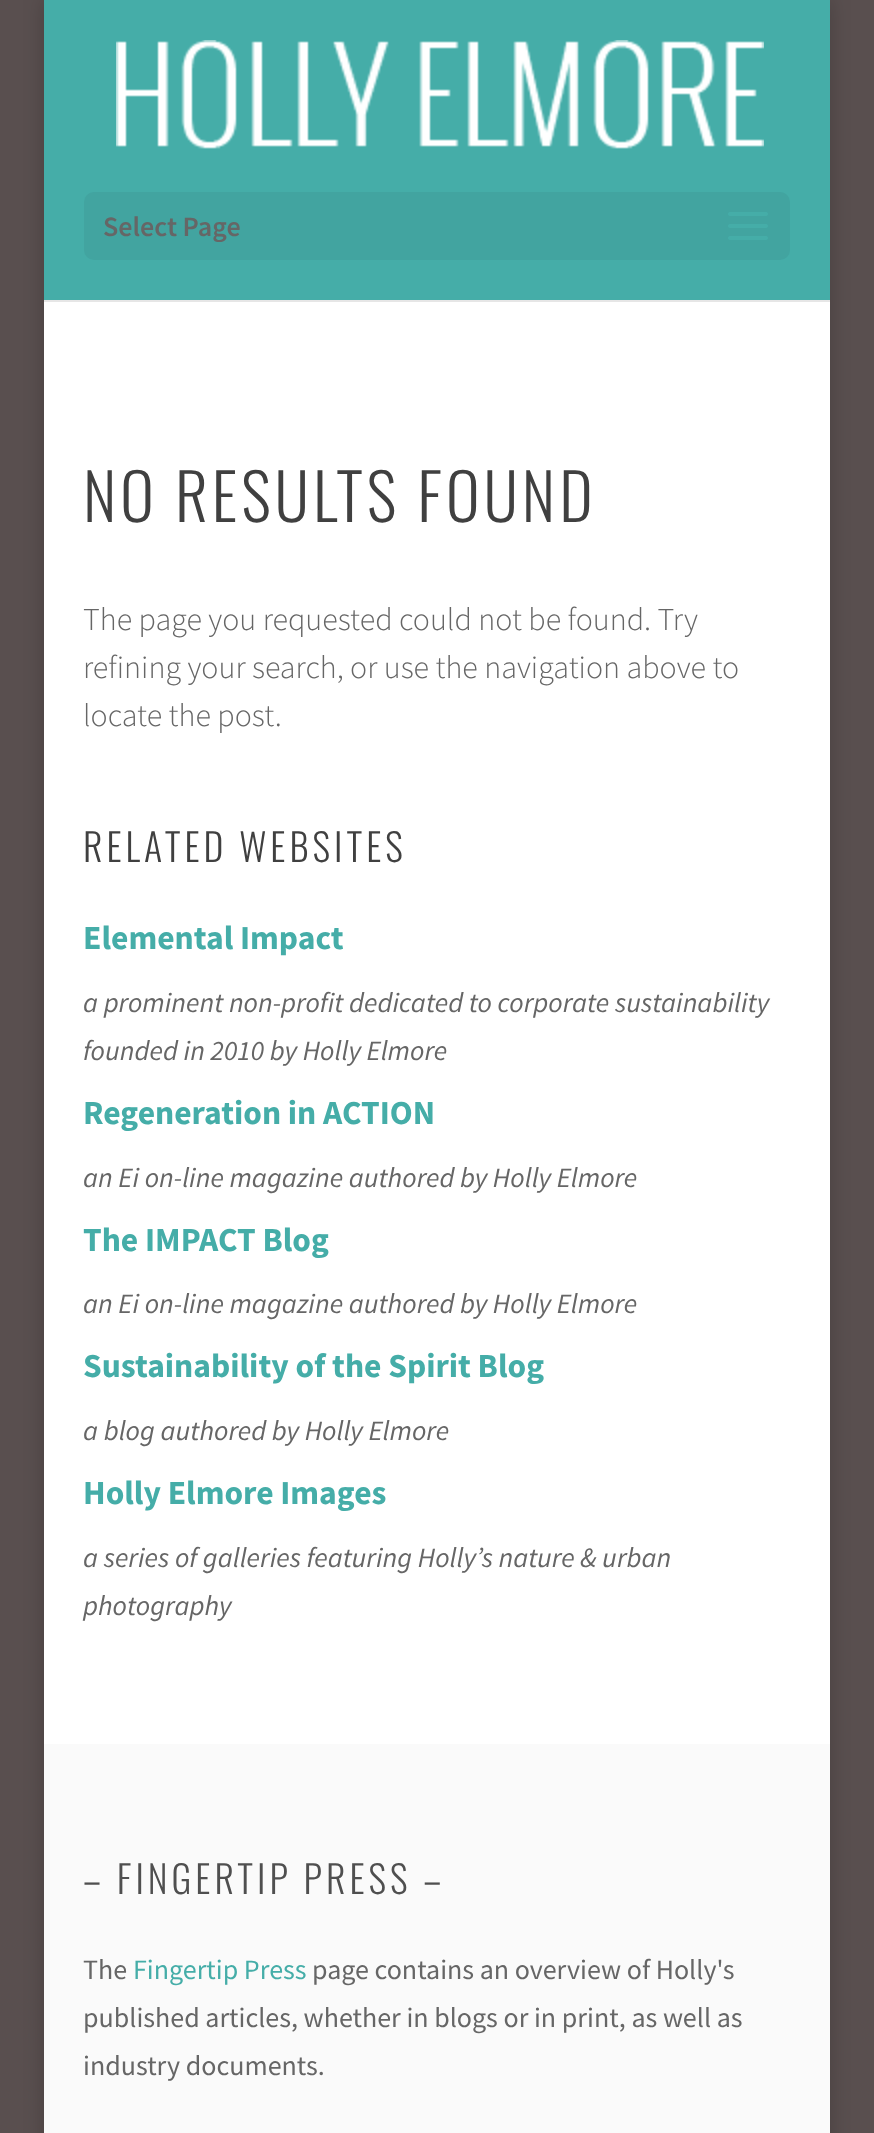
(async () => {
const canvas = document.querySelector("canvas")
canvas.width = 874
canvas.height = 2133
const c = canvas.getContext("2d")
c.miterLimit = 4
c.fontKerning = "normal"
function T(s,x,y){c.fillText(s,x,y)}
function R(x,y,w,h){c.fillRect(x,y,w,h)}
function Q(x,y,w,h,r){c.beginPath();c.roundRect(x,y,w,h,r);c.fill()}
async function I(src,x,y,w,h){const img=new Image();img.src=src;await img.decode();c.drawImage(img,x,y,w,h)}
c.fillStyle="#594f4f"
R(0,0,874,2133)
c.fillStyle="#00000033"
c.filter="blur(10px)"
c.beginPath()
c.rect(44,0,786,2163)
c.fill()
c.filter="none"
c.fillStyle="#e6e6e6"
R(44,300,786,2)
c.fillStyle="#45ada8"
R(44,0,786,300)
await I("1.png",116,40,648,109)
c.fillStyle="#42a4a0"
Q(84,192,706,68,10)
c.font="600 28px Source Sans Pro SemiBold"
c.fillStyle="#666"
T("Select Page",103,236)
await I("2.png",728,212,40,28)
c.fillStyle="#fff"
R(44,302,786,1442)
c.letterSpacing="4px"
c.font="300 64px Oswald"
c.fillStyle="#404040"
T("NO RESULTS FOUND",83,522)
c.letterSpacing="0px"
c.font="300 32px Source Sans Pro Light"
c.fillStyle="#666"
T("The page you requested could not be found. Try",83,630)
T("refining your search, or use the navigation above to",83,678)
T("locate the post.",83,726)
c.letterSpacing="4px"
c.font="300 38px Oswald"
c.fillStyle="#404040"
T("RELATED WEBSITES",83,862)
c.letterSpacing="0px"
c.font="bold 33.6px Source Sans Pro"
c.fillStyle="#45ada8"
T("Elemental Impact",83,949)
c.font="italic 28px Source Sans Pro"
c.fillStyle="#666"
T("a prominent non-profit dedicated to corporate sustainability",83,1012)
T("founded in 2010 by Holly Elmore",83,1060)
c.font="bold 33.6px Source Sans Pro"
c.fillStyle="#45ada8"
T("Regeneration in ACTION",83,1124)
c.font="italic 28px Source Sans Pro"
c.fillStyle="#666"
T("an Ei on-line magazine authored by Holly Elmore",83,1187)
c.font="bold 33.6px Source Sans Pro"
c.fillStyle="#45ada8"
T("The IMPACT Blog",83,1251)
c.font="italic 28px Source Sans Pro"
c.fillStyle="#666"
T("an Ei on-line magazine authored by Holly Elmore",83,1313)
c.font="bold 33.6px Source Sans Pro"
c.fillStyle="#45ada8"
T("Sustainability of the Spirit Blog",83,1377)
c.font="italic 28px Source Sans Pro"
c.fillStyle="#666"
T("a blog authored by Holly Elmore",83,1440)
c.font="bold 33.6px Source Sans Pro"
c.fillStyle="#45ada8"
T("Holly Elmore Images",83,1504)
c.font="italic 28px Source Sans Pro"
c.fillStyle="#666"
T("a series of galleries featuring Holly’s nature & urban",83,1567)
T("photography",83,1615)
c.fillStyle="#fafafa"
R(44,1744,786,389)
c.letterSpacing="4px"
c.font="300 38px Oswald"
c.fillStyle="#4f4f4f"
T("– FINGERTIP PRESS –",83,1894)
c.letterSpacing="0px"
c.font="28px Source Sans Pro"
c.fillStyle="#666"
T("The",83,1979)
c.fillStyle="#45ada8"
T("Fingertip Press",133,1979)
c.fillStyle="#666"
T("page contains an overview of Holly's",312,1979)
T("published articles, whether in blogs or in print, as well as",83,2027)
T("industry documents.",83,2075)
})()
